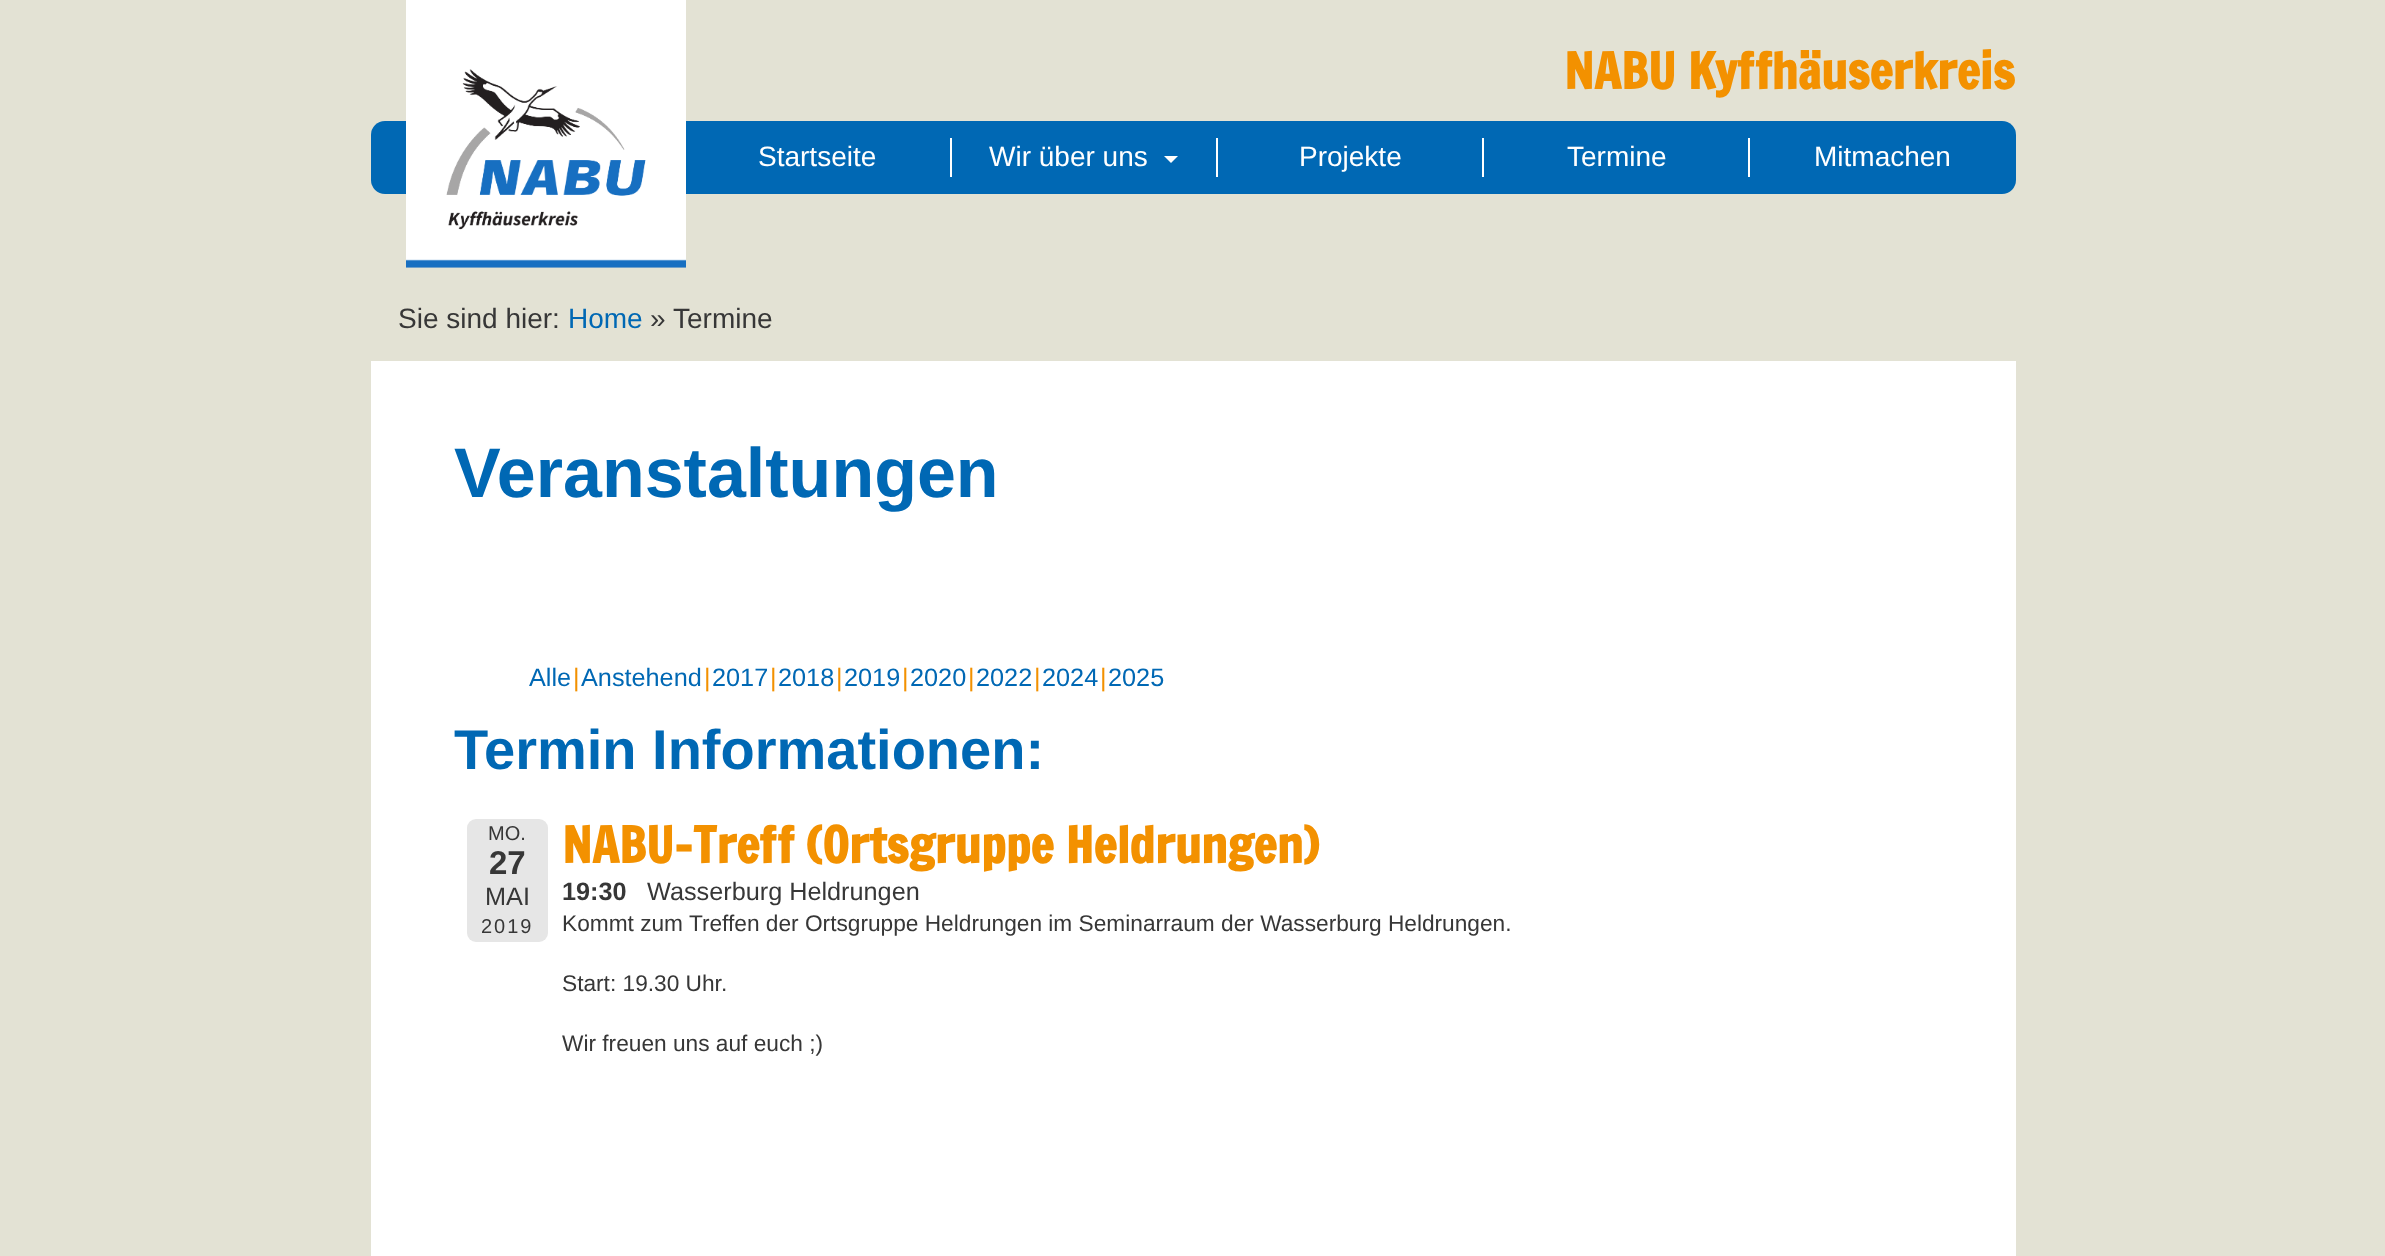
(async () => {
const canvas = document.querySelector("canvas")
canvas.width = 2385
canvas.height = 1256
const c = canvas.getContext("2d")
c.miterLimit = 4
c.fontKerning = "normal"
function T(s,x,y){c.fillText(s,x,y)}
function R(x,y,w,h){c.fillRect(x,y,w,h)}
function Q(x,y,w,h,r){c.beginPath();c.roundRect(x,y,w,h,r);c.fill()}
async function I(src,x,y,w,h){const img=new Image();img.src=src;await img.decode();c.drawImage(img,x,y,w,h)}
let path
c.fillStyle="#e3e2d4"
R(0,0,2385,1256)
c.fillStyle="#0068b4"
Q(371,121,1645,73,14)
await I("1.png",406,0,280,268)
c.font="bold 49px Francois One"
c.fillStyle="#f39100"
T("NABU Kyffhäuserkreis",1564,89)
c.font="28px Liberation Sans"
c.fillStyle="#fff"
T("Startseite",758,166)
R(950,138,2,39)
T("Wir über uns",989,166)
path = new Path2D("M1164 156h14l-7 7z")
c.fill(path)
R(1216,138,2,39)
T("Projekte",1299,166)
R(1482,138,2,39)
T("Termine",1567,166)
R(1748,138,2,39)
T("Mitmachen",1814,166)
c.fillStyle="#373737"
T("Sie sind hier:",398,328)
c.fillStyle="#0068b4"
T("Home",568,328)
c.fillStyle="#373737"
T("»",650,328)
T("Termine",673,328)
c.fillStyle="#fff"
R(371,361,1645,895)
c.font="bold 70px Liberation Sans"
c.fillStyle="#0068b4"
T("Veranstaltungen",454,497)
c.font="25.25px Liberation Sans"
T("Alle",529,686)
c.fillStyle="#f39100"
T("|",573,686)
c.fillStyle="#0068b4"
T("Anstehend",581,686)
c.fillStyle="#f39100"
T("|",704,686)
c.fillStyle="#0068b4"
T("2017",712,686)
c.fillStyle="#f39100"
T("|",770,686)
c.fillStyle="#0068b4"
T("2018",778,686)
c.fillStyle="#f39100"
T("|",836,686)
c.fillStyle="#0068b4"
T("2019",844,686)
c.fillStyle="#f39100"
T("|",902,686)
c.fillStyle="#0068b4"
T("2020",910,686)
c.fillStyle="#f39100"
T("|",968,686)
c.fillStyle="#0068b4"
T("2022",976,686)
c.fillStyle="#f39100"
T("|",1034,686)
c.fillStyle="#0068b4"
T("2024",1042,686)
c.fillStyle="#f39100"
T("|",1100,686)
c.fillStyle="#0068b4"
T("2025",1108,686)
c.font="bold 56px Liberation Sans"
T("Termin Informationen:",454,769)
c.fillStyle="#e6e6e6"
Q(467,819,81,123,9)
c.font="20px Liberation Sans"
c.fillStyle="#373737"
T("MO.",488,840)
c.font="bold 33px Liberation Sans"
T("27",489,874)
c.font="25.25px Liberation Sans"
T("MAI",485,905)
c.letterSpacing="2px"
c.font="20px Liberation Sans"
T("2019",481,933)
c.letterSpacing="0px"
c.font="bold 49px Francois One"
c.fillStyle="#f39100"
T("NABU-Treff (Ortsgruppe Heldrungen)",562,863)
c.font="bold 25.25px Liberation Sans"
c.fillStyle="#373737"
T("19:30",562,900)
c.font="25.25px Liberation Sans"
T("Wasserburg Heldrungen",647,900)
c.font="22.7px Liberation Sans"
T("Kommt zum Treffen der Ortsgruppe Heldrungen im Seminarraum der Wasserburg Heldrungen.",562,931)
T("Start: 19.30 Uhr.",562,991)
T("Wir freuen uns auf euch ;)",562,1051)
})()
